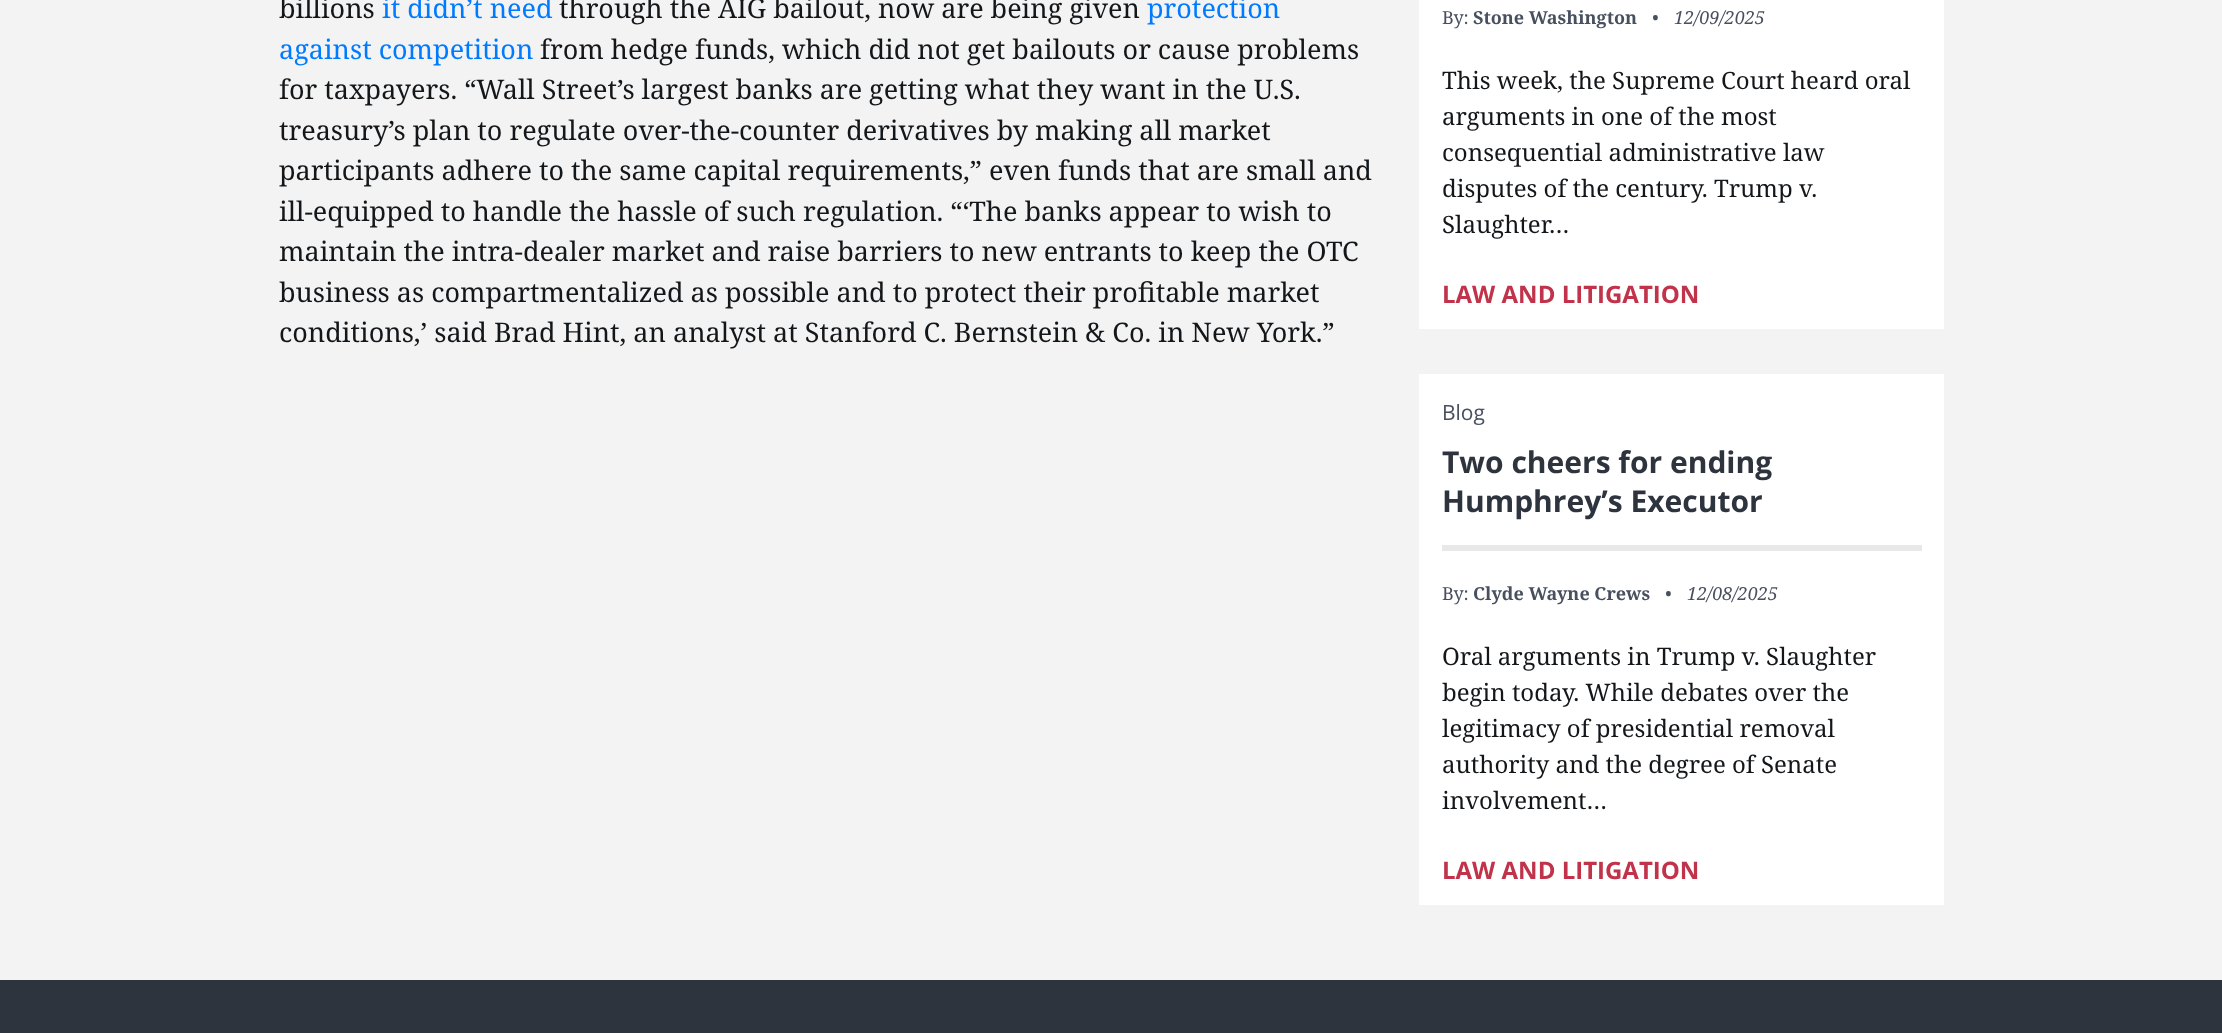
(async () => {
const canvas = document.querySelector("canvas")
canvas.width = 2222
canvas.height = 1033
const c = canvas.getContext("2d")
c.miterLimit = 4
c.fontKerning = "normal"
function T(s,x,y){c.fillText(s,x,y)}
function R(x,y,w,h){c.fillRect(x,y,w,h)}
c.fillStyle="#f3f3f3"
R(0,0,2222,1033)
c.font="27px Noto Serif"
c.fillStyle="#14171a"
T("billions",279,18)
c.fillStyle="#007bff"
T("it didn’t need",382,18)
c.fillStyle="#14171a"
T("through the AIG bailout, now are being given",559,18)
c.fillStyle="#007bff"
T("protection",1147,18)
T("against competition",279,59)
c.fillStyle="#14171a"
T("from hedge funds, which did not get bailouts or cause problems",540,59)
T("for taxpayers. “Wall Street’s largest banks are getting what they want in the U.S.",279,99)
T("treasury’s plan to regulate over-the-counter derivatives by making all market",279,140)
T("participants adhere to the same capital requirements,” even funds that are small and",279,180)
T("ill-equipped to handle the hassle of such regulation. “‘The banks appear to wish to",279,221)
T("maintain the intra-dealer market and raise barriers to new entrants to keep the OTC",279,261)
T("business as compartmentalized as possible and to protect their profitable market",279,302)
T("conditions,’ said Brad Hint, an analyst at Stanford C. Bernstein & Co. in New York.”",279,342)
c.fillStyle="#fff"
R(1419,0,525,329)
c.font="18px Noto Serif"
c.fillStyle="#48505f"
T("By:",1442,24)
c.font="bold 18px Noto Serif"
T("Stone Washington",1473,24)
c.font="italic 18px Noto Serif"
T("•",1652,24)
T("12/09/2025",1674,24)
c.font="24px Noto Serif"
c.fillStyle="#14171a"
T("This week, the Supreme Court heard oral",1442,89)
T("arguments in one of the most",1442,125)
T("consequential administrative law",1442,161)
T("disputes of the century. Trump v.",1442,197)
T("Slaughter…",1442,233)
c.font="bold 24px Open Sans"
c.fillStyle="#c1334b"
T("LAW AND LITIGATION",1442,303)
c.fillStyle="#fff"
R(1419,374,525,531)
c.font="21px Open Sans"
c.fillStyle="#48505f"
T("Blog",1442,420)
c.font="bold 30px Open Sans"
c.fillStyle="#2e343e"
T("Two cheers for ending",1442,473)
T("Humphrey’s Executor",1442,512)
c.fillStyle="#e8e8e8"
R(1442,545,480,6)
c.font="18px Noto Serif"
c.fillStyle="#48505f"
T("By:",1442,600)
c.font="bold 18px Noto Serif"
T("Clyde Wayne Crews",1473,600)
c.font="italic 18px Noto Serif"
T("•",1665,600)
T("12/08/2025",1687,600)
c.font="24px Noto Serif"
c.fillStyle="#14171a"
T("Oral arguments in Trump v. Slaughter",1442,665)
T("begin today. While debates over the",1442,701)
T("legitimacy of presidential removal",1442,737)
T("authority and the degree of Senate",1442,773)
T("involvement…",1442,809)
c.font="bold 24px Open Sans"
c.fillStyle="#c1334b"
T("LAW AND LITIGATION",1442,879)
c.fillStyle="#2e343e"
R(0,980,2222,53)
})()
